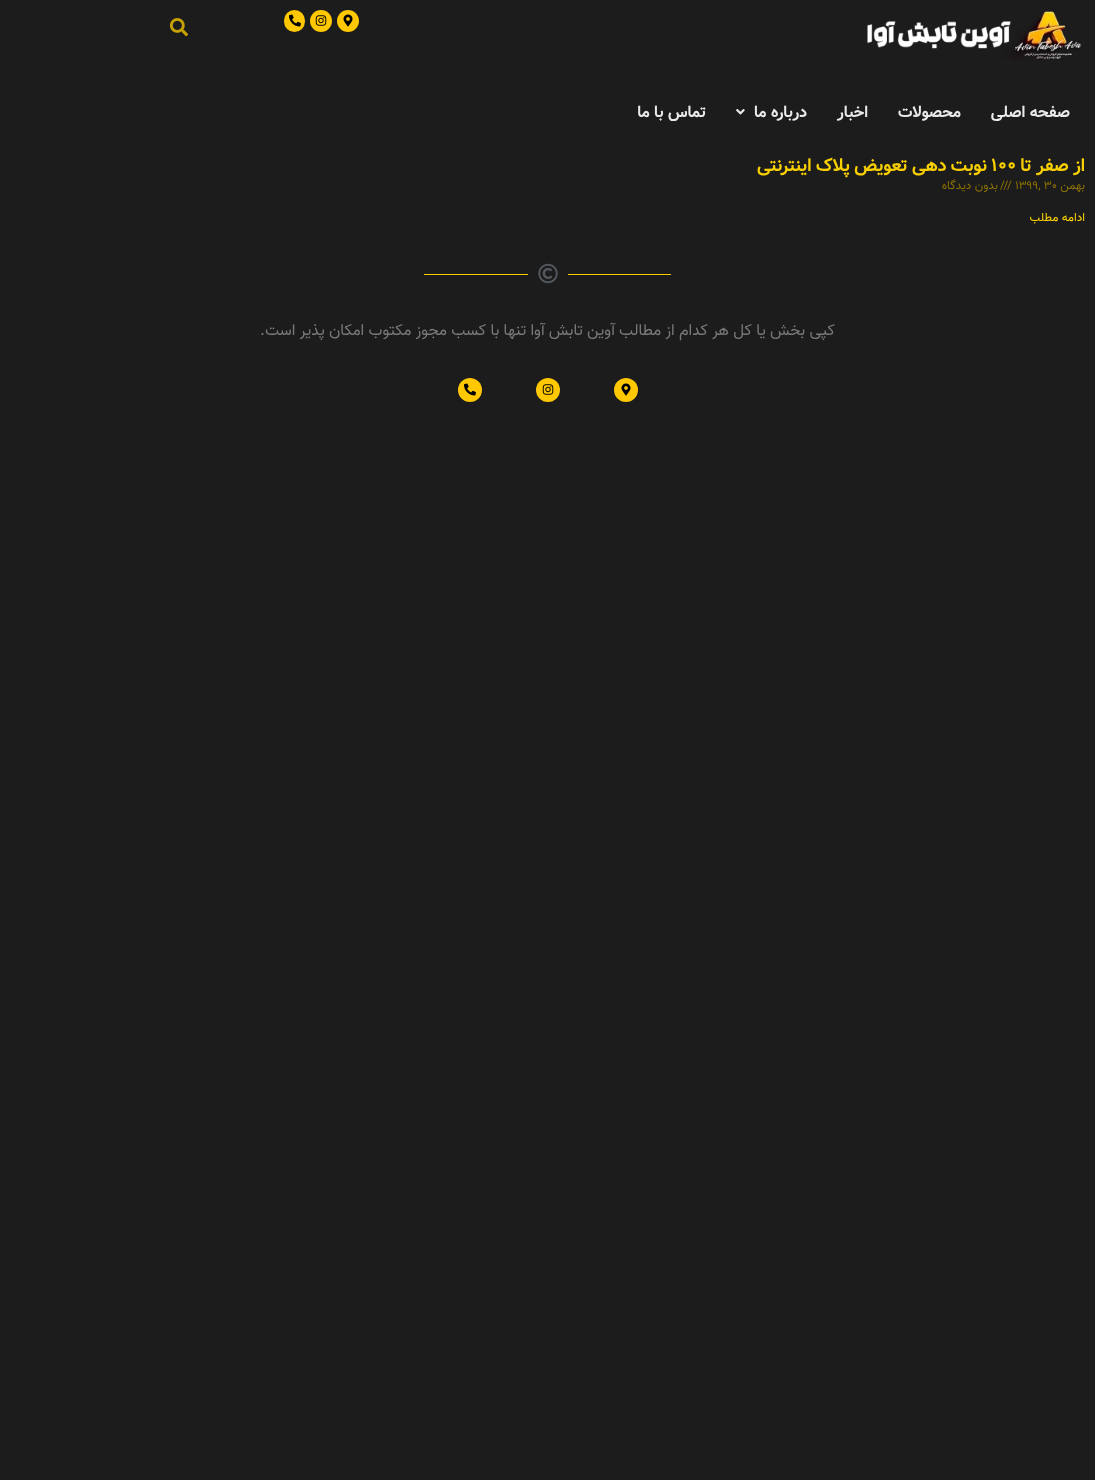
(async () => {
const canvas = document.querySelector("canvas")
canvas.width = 1095
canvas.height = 1480
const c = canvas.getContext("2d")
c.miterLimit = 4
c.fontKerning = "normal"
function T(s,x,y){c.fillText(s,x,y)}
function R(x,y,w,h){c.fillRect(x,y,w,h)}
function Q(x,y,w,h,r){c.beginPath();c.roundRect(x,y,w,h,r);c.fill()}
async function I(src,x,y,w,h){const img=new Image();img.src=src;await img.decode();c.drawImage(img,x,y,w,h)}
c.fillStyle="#1c1c1c"
R(0,0,1095,1480)
await I("1.png",867,11,215,49)
c.fillStyle="#ffc800"
c.beginPath()
c.arc(348,21,11,0,7)
c.fill()
await I("2.png",343,14,10,13)
c.beginPath()
c.arc(321,21,11,0,7)
c.fill()
await I("3.png",315,15,12,11)
Q(284,10,21,22,10.5)
await I("4.png",289,14,12,13)
await I("5.png",169,18,19,19)
c.direction="rtl"
c.font="bold 16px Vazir"
c.fillStyle="#eaeaea"
T("صفحه اصلی",1070,117)
T("محصولات",961,117)
T("اخبار",868,117)
T("درباره ما",807,117)
await I("6.png",736,109,9,6)
T("تماس با ما",706,117)
c.font="bold 18px Vazir"
c.fillStyle="#f8cf00"
T("از صفر تا",1085,171)
c.direction="ltr"
T("۱۰۰",991,171)
c.wordSpacing="-0.5px"
c.direction="rtl"
T("نوبت دهی تعویض پلاک اینترنتی",987,171)
c.wordSpacing="0px"
c.font="12px Vazir"
c.fillStyle="#8c7200"
T("بهمن",1085,189)
c.direction="ltr"
T("۱۳۹۹, ۳۰",1015,189)
c.font="12px Roboto Slab"
T("///",1000,189)
c.direction="rtl"
c.font="12px Vazir"
T("بدون دیدگاه",998,189)
c.fillStyle="#ffd500"
T("ادامه مطلب",1085,221)
c.fillStyle="#ffc800"
R(568,274,103,1)
await I("7.png",538,263,20,21)
R(424,274,104,1)
c.font="16px Vazir"
c.fillStyle="#7a7a7a"
T("کپی بخش یا کل هر کدام از مطالب آوین تابش آوا تنها با کسب مجوز مکتوب امکان پذیر است.",835,335)
c.fillStyle="#ffc800"
c.beginPath()
c.arc(626,390,12,0,7)
c.fill()
await I("2.png",621,383,10,13)
c.beginPath()
c.arc(548,390,12,0,7)
c.fill()
await I("3.png",542,384,12,11)
c.beginPath()
c.arc(470,390,12,0,7)
c.fill()
await I("4.png",464,383,12,13)
})()
